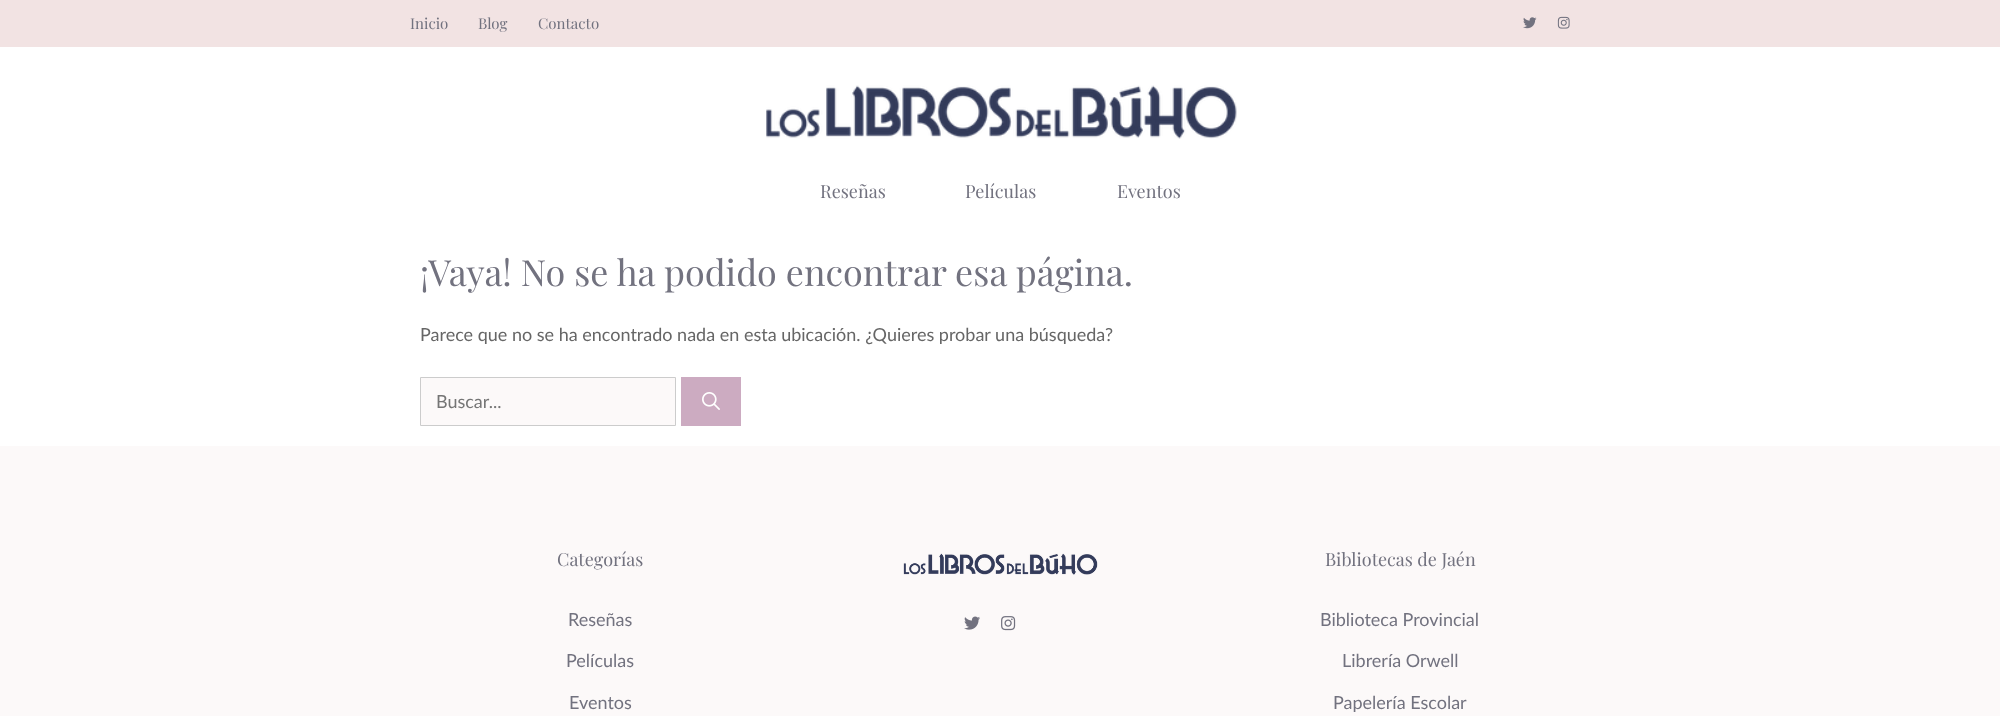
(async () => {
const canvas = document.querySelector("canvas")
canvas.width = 2000
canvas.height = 716
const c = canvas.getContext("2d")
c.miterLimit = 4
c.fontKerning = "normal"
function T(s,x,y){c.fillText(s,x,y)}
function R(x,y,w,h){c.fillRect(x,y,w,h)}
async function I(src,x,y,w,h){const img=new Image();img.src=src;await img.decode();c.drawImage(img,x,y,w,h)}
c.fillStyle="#fff"
R(0,0,2000,716)
c.fillStyle="#f2e3e3"
R(0,0,2000,47)
c.font="15px Playfair Display"
c.fillStyle="#72727f"
T("Inicio",410,29)
T("Blog",478,29)
T("Contacto",538,29)
await I("1.png",1523,17,14,12)
await I("2.png",1557,16,13,13)
await I("3.png",766,85,471,54)
c.font="18px Playfair Display"
T("Reseñas",820,198)
T("Películas",965,198)
T("Eventos",1117,198)
c.font="36px Playfair Display"
T("¡Vaya! No se ha podido encontrar esa página.",420,286)
c.font="18px Lato"
c.fillStyle="#666"
T("Parece que no se ha encontrado nada en esta ubicación. ¿Quieres probar una búsqueda?",420,341)
c.fillStyle="#fcf9f9"
c.beginPath()
c.rect(420.5,377.5,255,48)
c.fill()
c.strokeStyle="#ccc"
c.stroke()
c.fillStyle="#757575"
T("Buscar...",436,408)
c.fillStyle="#ccabc1"
R(681,377,60,49)
await I("4.png",702,392,18,18)
c.fillStyle="#fcf9f9"
R(0,446,2000,270)
c.font="18px Playfair Display"
c.fillStyle="#72727f"
T("Categorías",557,566)
c.font="18px Lato"
T("Reseñas",568,626)
T("Películas",566,667)
T("Eventos",569,709)
await I("5.png",903,553,195,22)
await I("6.png",964,616,16,14)
await I("7.png",1001,616,15,15)
c.font="18px Playfair Display"
T("Bibliotecas de Jaén",1325,566)
c.font="18px Lato"
T("Biblioteca Provincial",1320,626)
T("Librería Orwell",1342,667)
T("Papelería Escolar",1333,709)
})()
